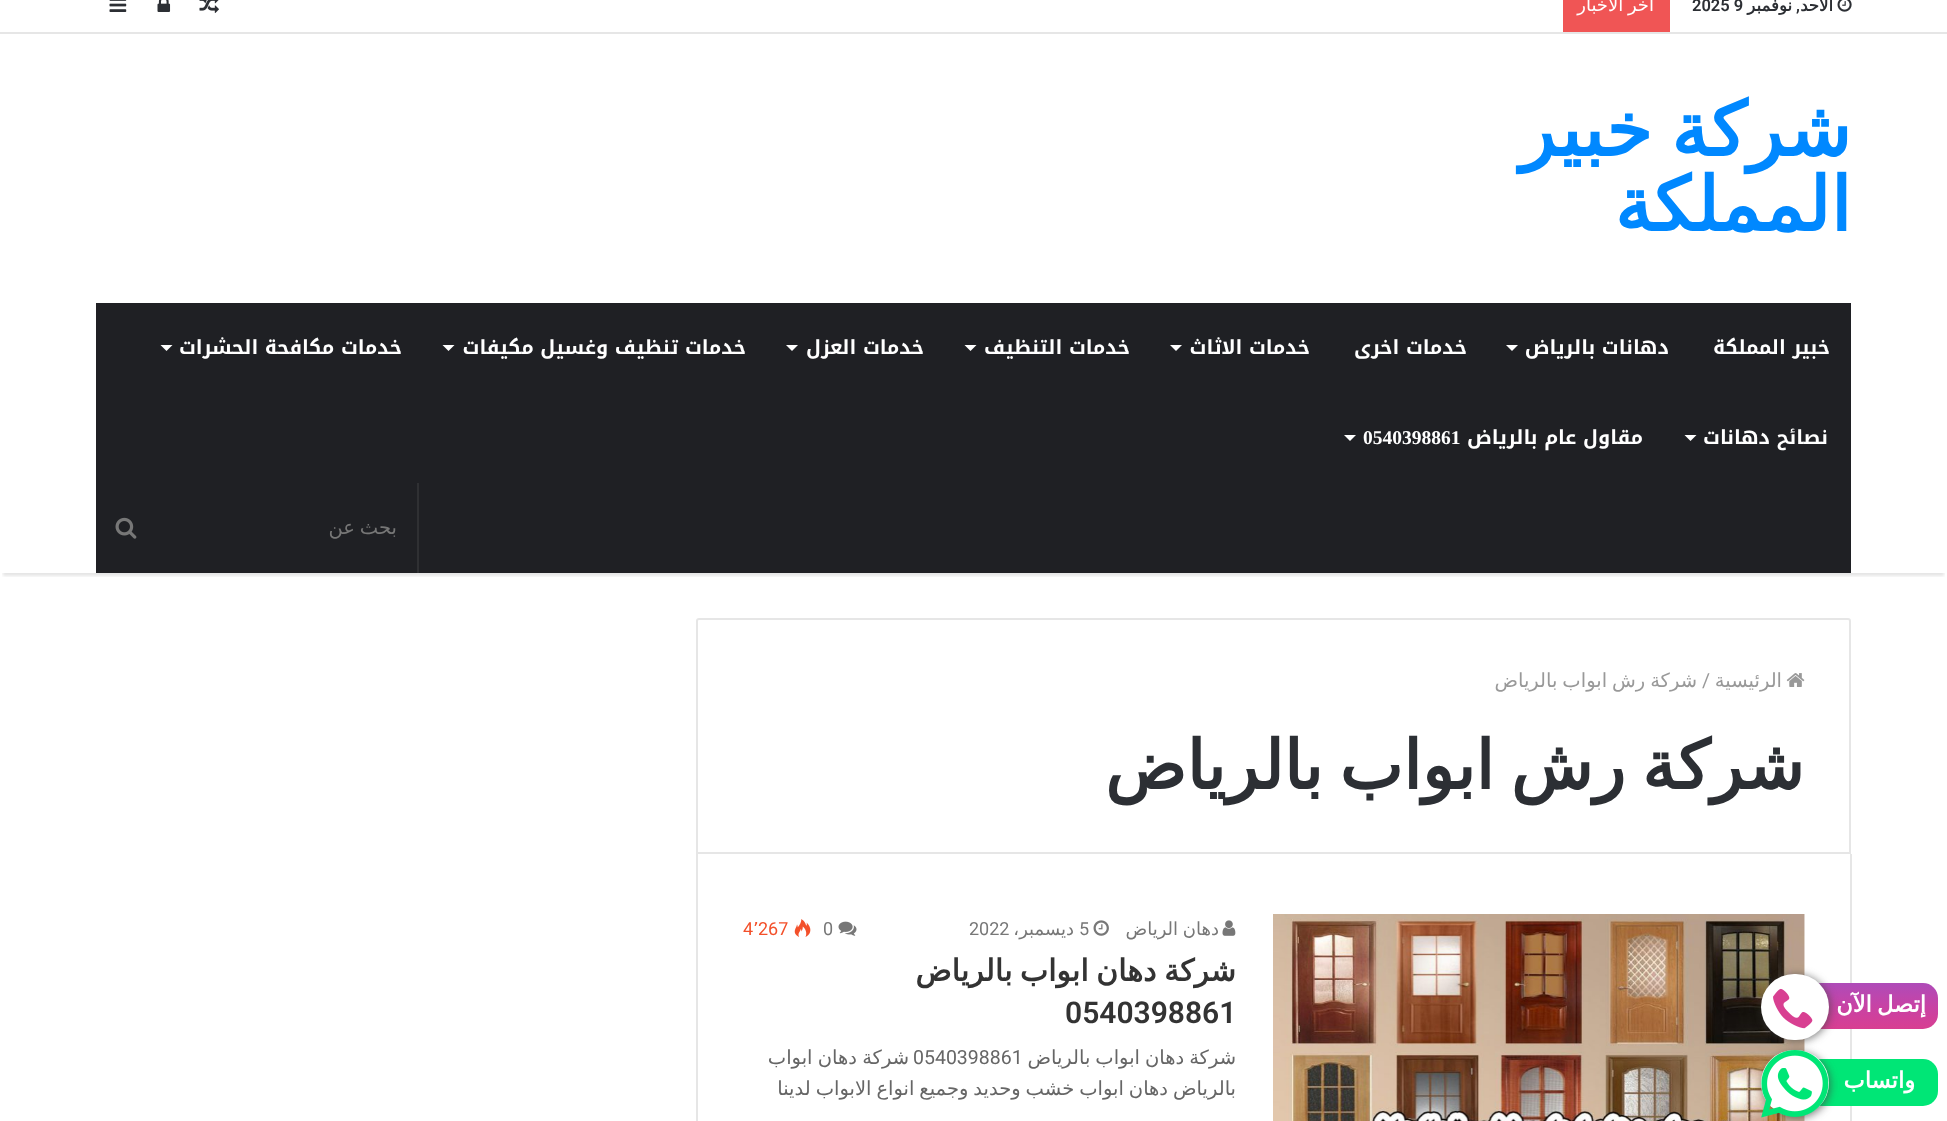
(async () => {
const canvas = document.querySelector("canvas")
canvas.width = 1947
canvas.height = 1121
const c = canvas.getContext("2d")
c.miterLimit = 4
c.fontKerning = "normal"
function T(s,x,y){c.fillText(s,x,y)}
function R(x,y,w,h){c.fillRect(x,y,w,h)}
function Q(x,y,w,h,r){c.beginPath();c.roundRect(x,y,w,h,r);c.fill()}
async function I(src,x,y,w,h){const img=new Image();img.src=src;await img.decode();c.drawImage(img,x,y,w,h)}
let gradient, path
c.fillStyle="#fff"
R(0,0,1947,1121)
c.fillStyle="#e6e6e6"
R(1850,854,2,267)
gradient = c.createLinearGradient(1872,1029,1872,983)
gradient.addColorStop(0,"#d83f91")
gradient.addColorStop(.25,"#d0409b")
gradient.addColorStop(.5,"#c743a5")
gradient.addColorStop(.75,"#bb47af")
gradient.addColorStop(1,"#ae4bb8")
c.fillStyle = gradient
Q(1806,983,132,46,15)
c.wordSpacing="-2px"
c.direction="rtl"
c.font="bold 22.5px DejaVu Sans"
c.fillStyle="#fff"
T("إتصل الآن",1926,1012)
await I("9.png",1273,914,532,207)
c.fillStyle="#444444b5"
c.filter="blur(4.5px)"
c.beginPath()
c.roundRect(1763,975,67,66,33)
c.fill()
c.filter="none"
c.fillStyle="#fff"
Q(1761,974,68,66,33)
await I("1.png",1773,988,40,41)
c.fillStyle="#00e676"
Q(1806,1059,132,47,15)
c.wordSpacing="0px"
c.fillStyle="#fff"
T("واتساب",1915,1088)
c.fillStyle="#444444b5"
c.filter="blur(4.5px)"
c.beginPath()
c.roundRect(1763,1052,67,66,33)
c.fill()
c.filter="none"
c.fillStyle="#fff"
Q(1761,1050,68,66,33)
await I("2.png",1761,1050,68,68)
c.save()
c.beginPath()
c.rect(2,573,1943,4)
c.clip()
c.fillStyle="#0000001a"
c.filter="blur(1.5px)"
c.beginPath()
c.rect(3,-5,1941,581)
c.fill()
c.filter="none"
c.restore()
c.fillStyle="#e6e6e6"
R(0,32,1947,2)
await I("3.png",1837,0,15,12)
c.font="bold 16.5px DejaVu Sans"
c.fillStyle="#2c2f34"
T("الأحد",1833,11)
c.font="600 16.5px Roboto"
T(",",1800,11)
c.font="bold 16.5px DejaVu Sans"
T("نوفمبر",1792,11)
c.direction="ltr"
c.font="600 16.5px Roboto"
T("2025 9",1692,11)
c.fillStyle="#f05555"
R(1563,0,107,32)
c.wordSpacing="-1px"
c.direction="rtl"
c.font="18px DejaVu Sans"
c.fillStyle="#fff"
T("أخر الأخبار",1654,11)
await I("4.png",199,0,20,13)
await I("5.png",157,0,14,12)
await I("6.png",109,0,18,12)
c.wordSpacing="-5px"
c.font="bold 75px DejaVu Sans"
c.fillStyle="#08f"
T("شركة خبير",1851,156)
c.wordSpacing="0px"
T("المملكة",1851,231)
c.fillStyle="#1f2024"
R(96,303,1755,270)
c.font="bold 19.5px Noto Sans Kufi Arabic"
c.fillStyle="#fff"
T("خبير المملكة",1830,354)
T("دهانات بالرياض",1669,354)
path = new Path2D("M1506 345h12l-6 6z")
c.fill(path)
T("خدمات اخرى",1467,354)
T("خدمات الاثاث",1310,354)
path = new Path2D("M1170 345h12l-6 6z")
c.fill(path)
T("خدمات التنظيف",1130,354)
path = new Path2D("M964.5 345h12l-6 6z")
c.fill(path)
T("خدمات العزل",924,354)
path = new Path2D("M786 345h12l-6 6z")
c.fill(path)
T("خدمات تنظيف وغسيل مكيفات",746,354)
path = new Path2D("M442.5 345h12l-6 6z")
c.fill(path)
T("خدمات مكافحة الحشرات",402,354)
path = new Path2D("M160.5 345h12l-6 6z")
c.fill(path)
T("نصائح دهانات",1828,444)
path = new Path2D("M1684.5 435h12l-6 6z")
c.fill(path)
T("مقاول عام بالرياض",1643,444)
c.direction="ltr"
c.font="bold 19.5px Liberation Serif"
T("0540398861",1363,444)
path = new Path2D("M1344 435h12l-6 6z")
c.fill(path)
c.fillStyle="#2f3033"
R(417,483,2,90)
c.wordSpacing="-1.25px"
c.direction="rtl"
c.font="19.5px DejaVu Sans"
c.fillStyle="#777"
T("بحث عن",397,534)
await I("7.png",115,517,22,22)
c.beginPath()
c.roundRect(697,619,1153,234,[2,2,0,0])
c.strokeStyle="#e6e6e6"
c.lineWidth=2
c.stroke()
await I("8.png",1786,673,19,14)
c.wordSpacing="0px"
c.fillStyle="#999"
T("الرئيسية",1782,687)
c.direction="ltr"
c.font="19.5px Roboto"
T("/",1702,687)
c.wordSpacing="-1.25px"
c.direction="rtl"
c.font="19.5px DejaVu Sans"
T("شركة رش ابواب بالرياض",1697,687)
c.wordSpacing="-5px"
c.font="bold 67.5px DejaVu Sans"
c.fillStyle="#2c2f34"
T("شركة رش ابواب بالرياض",1804,789)
c.fillStyle="#e6e6e6"
R(696,854,2,267)
await I("10.png",1222,920,14,16)
c.wordSpacing="-1px"
c.font="18px DejaVu Sans"
c.fillStyle="#777"
T("دهان الرياض",1219,935)
await I("11.png",1093,920,16,16)
c.wordSpacing="0px"
c.direction="ltr"
c.font="18px Roboto"
T("5",1079,935)
c.direction="rtl"
c.font="18px DejaVu Sans"
T("ديسمبر،",1074,935)
c.direction="ltr"
c.font="18px Roboto"
T("2022",969,935)
await I("12.png",838,921,19,15)
T("0",823,935)
await I("13.png",794,919,17,18)
c.fillStyle="#f3502a"
T("267",758,935)
c.font="18px DejaVu Sans"
T("٬",753,935)
c.font="18px Roboto"
T("4",743,935)
c.wordSpacing="-2px"
c.direction="rtl"
c.font="bold 30px DejaVu Sans"
c.fillStyle="#333"
T("شركة دهان ابواب بالرياض",1236,981)
c.wordSpacing="0px"
c.direction="ltr"
c.font="600 30px Roboto"
T("0540398861",1065,1023)
c.wordSpacing="-1.25px"
c.direction="rtl"
c.font="19.5px DejaVu Sans"
c.fillStyle="#666"
T("شركة دهان ابواب بالرياض",1236,1064)
c.wordSpacing="0px"
c.direction="ltr"
c.font="19.5px Roboto"
T("0540398861",913,1064)
c.wordSpacing="-1px"
c.direction="rtl"
c.font="19.5px DejaVu Sans"
T("شركة دهان ابواب",909,1064)
c.wordSpacing="-1.25px"
T("بالرياض دهان ابواب خشب وحديد وجميع انواع الابواب لدينا",1236,1095)
})()
